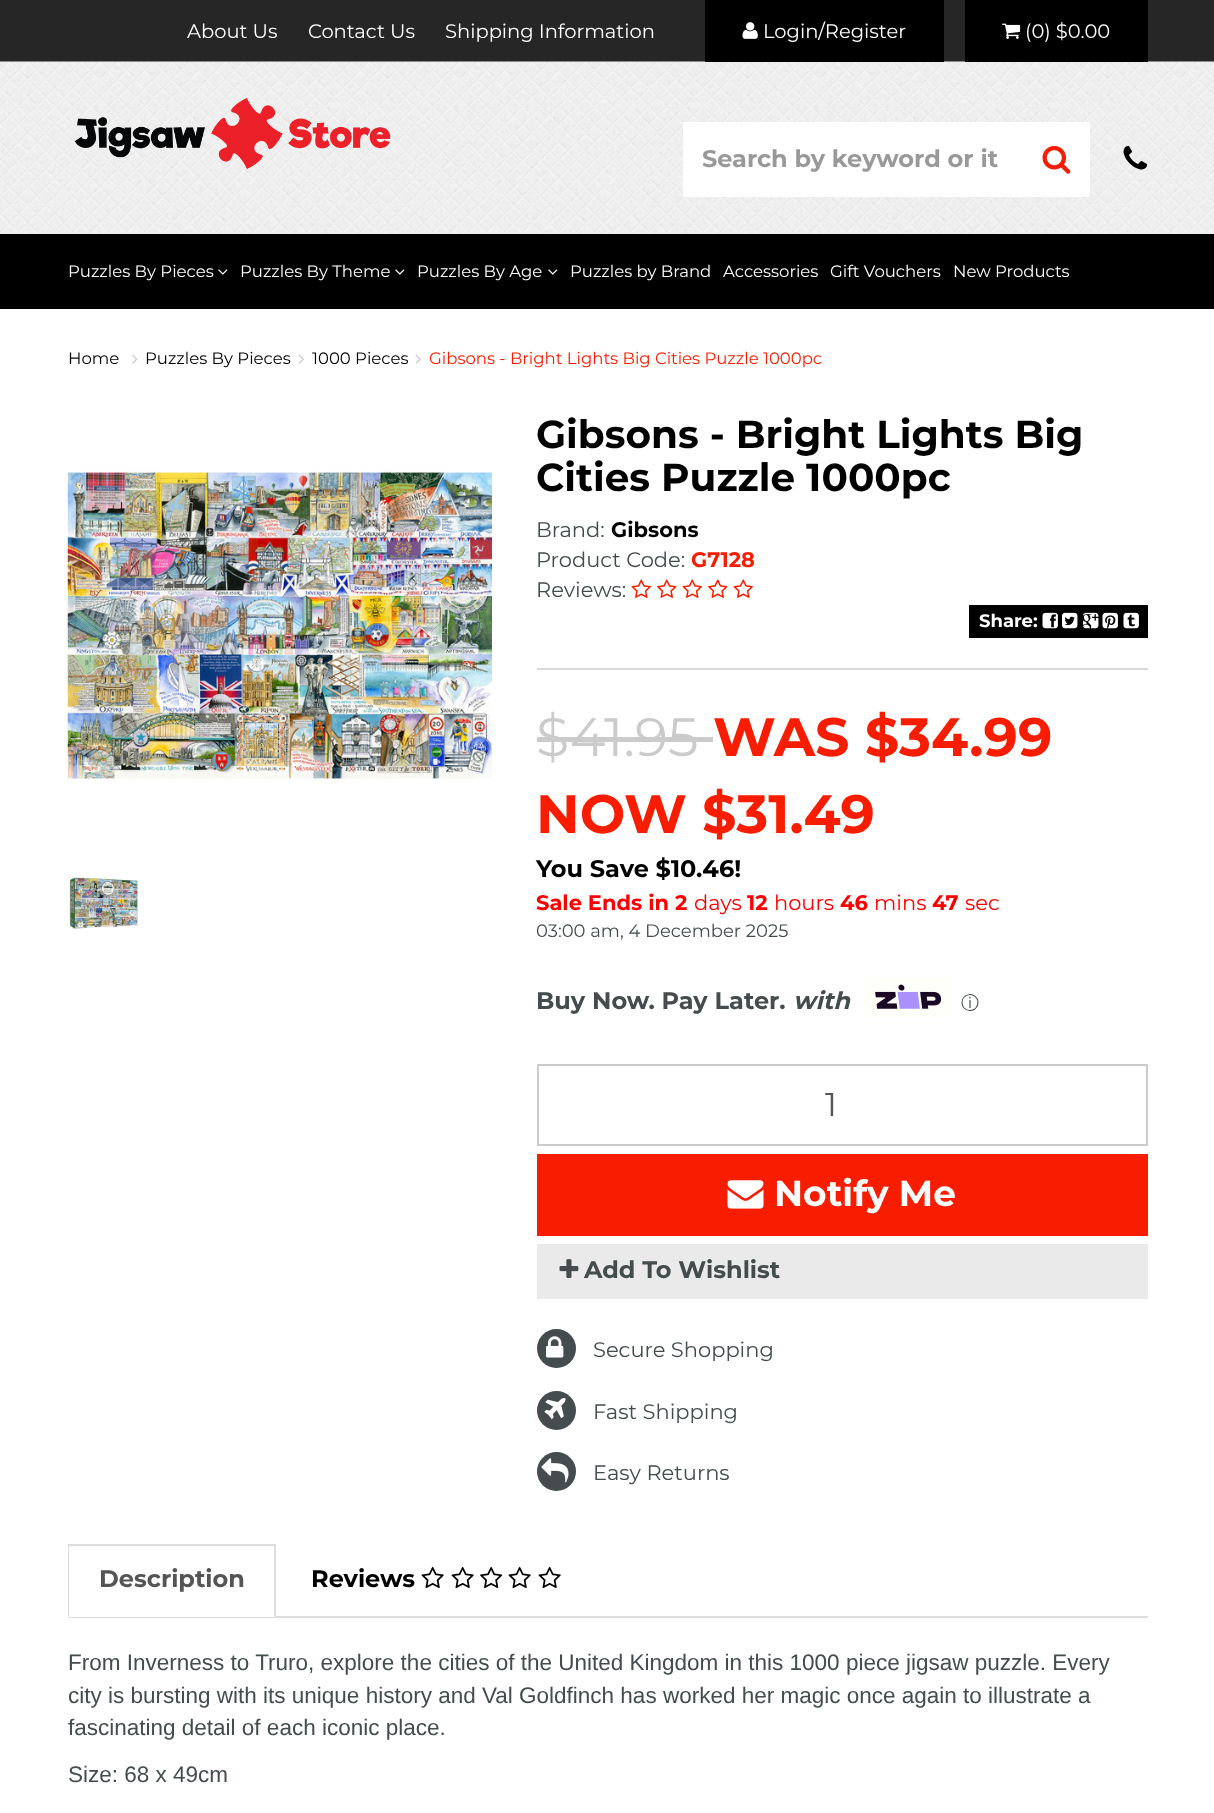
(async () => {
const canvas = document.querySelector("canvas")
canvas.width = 1214
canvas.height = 1813
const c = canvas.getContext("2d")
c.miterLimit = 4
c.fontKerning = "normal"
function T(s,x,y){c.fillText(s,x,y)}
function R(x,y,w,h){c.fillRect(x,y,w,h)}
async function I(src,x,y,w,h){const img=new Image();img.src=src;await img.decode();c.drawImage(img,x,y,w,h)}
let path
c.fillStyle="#fff"
R(0,0,1214,1813)
c.fillStyle="#262626"
R(0,0,1214,62)
c.font="19.5px Montserrat"
c.fillStyle="#fff"
T("About Us",187,38)
T("Contact Us",308,38)
T("Shipping Information",445,38)
await I("3.png",0,61,1214,173)
c.fillStyle="#000"
R(705,0,239,62)
await I("1.png",742,22,16,17)
c.fillStyle="#fff"
T("Login/Register",763,38)
c.fillStyle="#000"
R(965,0,183,62)
await I("2.png",1002,23,19,16)
c.fillStyle="#fff"
T("(0) $0.00",1025,38)
await I("4.png",74,97,317,73)
R(683,122,407,75)
c.font="bold 24px Montserrat"
c.fillStyle="#999"
T("Search by keyword or it",702,167)
await I("5.png",1042,145,29,29)
await I("6.png",1123,145,25,25)
c.fillStyle="#000"
R(0,234,1214,75)
c.font="16.5px Montserrat"
c.fillStyle="#fff"
T("Puzzles By Pieces",68,277)
await I("7.png",218,269,10,6)
T("Puzzles By Theme",240,277)
await I("7.png",395,269,10,6)
T("Puzzles By Age",417,277)
await I("7.png",548,269,10,6)
T("Puzzles by Brand",570,277)
T("Accessories",723,277)
T("Gift Vouchers",830,277)
T("New Products",953,277)
c.fillStyle="#000"
T("Home",68,364)
await I("8.png",132,354,6,10)
T("Puzzles By Pieces",145,364)
await I("9.png",298,354,6,10)
T("1000 Pieces",312,364)
await I("9.png",415,354,6,10)
c.fillStyle="#f91d00"
T("Gibsons - Bright Lights Big Cities Puzzle 1000pc",429,364)
await I("10.png",67,468,425,312)
await I("11.png",69,877,69,52)
c.font="bold 39px Montserrat"
c.fillStyle="#000"
T("Gibsons - Bright Lights Big",536,448)
T("Cities Puzzle 1000pc",536,491)
c.font="21px Montserrat"
c.fillStyle="#444c4d"
T("Brand:",536,537)
c.font="bold 21px Montserrat"
c.fillStyle="#000"
T("Gibsons",611,537)
c.font="21px Montserrat"
c.fillStyle="#444c4d"
T("Product Code:",536,567)
c.font="bold 21px Montserrat"
c.fillStyle="#f91d00"
T("G7128",691,567)
c.font="21px Montserrat"
c.fillStyle="#444c4d"
T("Reviews:",536,597)
await I("12.png",631,579,20,19)
await I("13.png",657,579,20,19)
await I("12.png",682,579,20,19)
await I("13.png",708,579,20,19)
await I("12.png",733,579,20,19)
c.fillStyle="#000"
R(969,605,179,33)
c.font="bold 18px Montserrat"
c.fillStyle="#fff"
T("Share:",979,627)
await I("14.png",1042,612,16,17)
await I("15.png",1062,612,16,17)
await I("16.png",1083,612,16,17)
await I("17.png",1102,612,16,17)
await I("18.png",1123,612,16,17)
c.fillStyle="#d9d9d9"
R(537,668,611,2)
c.font="54px Montserrat"
c.fillStyle="#cbcbcb"
T("$41.95",536,756)
R(537,737,176,5)
c.font="bold 54px Montserrat"
c.fillStyle="#f91d00"
T("WAS $34.99",713,756)
T("NOW $31.49",536,833)
c.font="bold 24px Montserrat"
c.fillStyle="#000"
T("You Save $10.46!",536,877)
c.font="bold 21px Montserrat"
c.fillStyle="#f00"
T("Sale Ends in 2",536,910)
c.font="21px Montserrat"
T("days",694,910)
c.font="bold 21px Montserrat"
T("12",747,910)
c.font="21px Montserrat"
T("hours",774,910)
c.font="bold 21px Montserrat"
T("46",840,910)
c.font="21px Montserrat"
T("mins",874,910)
c.font="bold 21px Montserrat"
T("47",932,910)
c.font="21px Montserrat"
T("sec",965,910)
c.font="18px Montserrat"
c.fillStyle="#444c4d"
T("03:00 am, 4 December 2025",536,937)
c.font="bold 24px Montserrat"
T("Buy Now. Pay Later.",536,1009)
c.font="italic bold 24px Montserrat"
T("with",793,1009)
await I("19.png",863,978,89,40)
c.font="500 18px WenQuanYi Zen Hei"
T("ⓘ",961,1009)
c.strokeStyle="#ccc"
c.lineWidth=2
c.strokeRect(538,1065,609,80)
c.font="33px Montserrat"
c.fillStyle="#555"
T("1",825,1116)
c.fillStyle="#f91d00"
R(537,1154,611,82)
await I("20.png",727,1180,37,29)
c.font="bold 36px Montserrat"
c.fillStyle="#fff"
T("Notify Me",774,1206)
c.fillStyle="#eaeaea"
R(537,1244,611,55)
await I("21.png",559,1259,20,19)
c.font="bold 24px Montserrat"
c.fillStyle="#444c4d"
T("Add To Wishlist",584,1278)
c.beginPath()
c.arc(556.5,1348.5,19.5,0,7)
c.fill()
await I("22.png",546,1336,18,22)
c.font="21px Montserrat"
T("Secure Shopping",593,1357)
c.beginPath()
c.arc(556.5,1410.5,19.5,0,7)
c.fill()
await I("23.png",544,1397,22,22)
T("Fast Shipping",593,1419)
c.beginPath()
c.arc(556.5,1471.5,19.5,0,7)
c.fill()
await I("24.png",541,1458,28,25)
T("Easy Returns",593,1480)
c.fillStyle="#ddd"
R(68,1616,1080,2)
c.fillStyle="#fff"
R(68,1616,208,1)
c.fillStyle="#ddd"
R(68,1544,208,2)
path = new Path2D("M276 1544v73l-2-1v-71z")
c.fill(path)
path = new Path2D("M68 1617v-73l1 1v71z")
c.fill(path)
c.font="bold 24px Montserrat"
c.fillStyle="#555"
T("Description",99,1587)
c.fillStyle="#000"
T("Reviews",311,1587)
await I("25.png",421,1566,23,23)
await I("25.png",451,1566,23,23)
await I("26.png",480,1566,23,23)
await I("25.png",508,1566,23,23)
await I("25.png",538,1566,23,23)
c.font="22.5px Liberation Sans"
c.fillStyle="#444c4d"
T("From Inverness to Truro, explore the cities of the United Kingdom in this 1000 piece jigsaw puzzle. Every",68,1670)
T("city is bursting with its unique history and Val Goldfinch has worked her magic once again to illustrate a",68,1703)
T("fascinating detail of each iconic place.",68,1735)
T("Size: 68 x 49cm",68,1782)
})()
